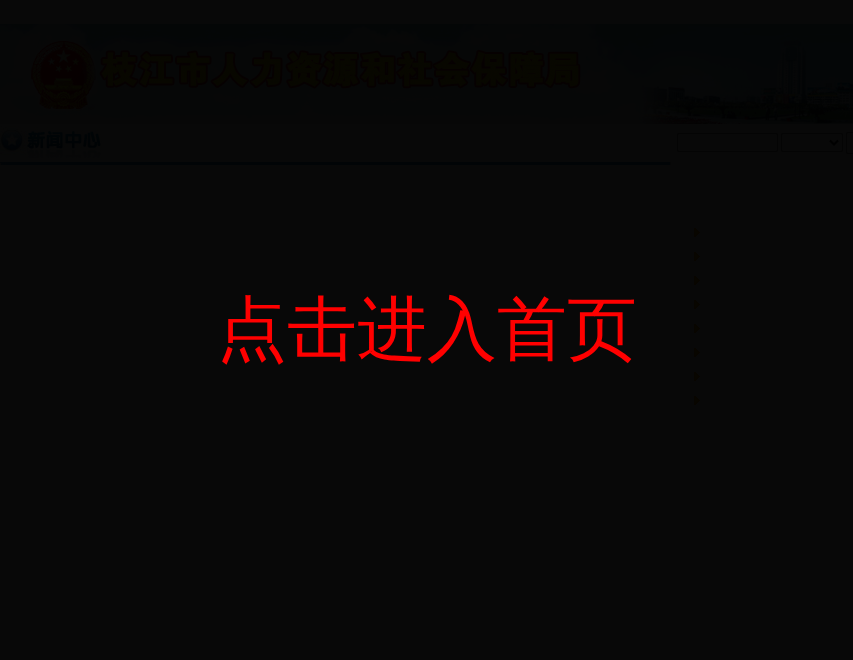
(async () => {
const canvas = document.querySelector("canvas")
canvas.width = 853
canvas.height = 660
const c = canvas.getContext("2d")
c.miterLimit = 4
c.fontKerning = "normal"
function T(s,x,y){c.fillText(s,x,y)}
function R(x,y,w,h){c.fillRect(x,y,w,h)}
async function I(src,x,y,w,h){const img=new Image();img.src=src;await img.decode();c.drawImage(img,x,y,w,h)}
let path
c.fillStyle="#080808"
R(0,0,853,660)
await I("1.png",0,24,853,100)
await I("2.png",0,126,102,32)
c.beginPath()
c.roundRect(677.5,133.5,100,18,1.5)
c.strokeStyle="#040404"
c.stroke()
c.beginPath()
c.roundRect(781.5,133.5,61,18,1.5)
c.stroke()
path = new Path2D("M830 140.5l4 4l4-4")
c.strokeStyle="#000"
c.lineWidth=2
c.stroke(path)
c.beginPath()
c.roundRect(846.5,132.5,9,21,1.5)
c.strokeStyle="#040404"
c.lineWidth=1
c.stroke()
await I("3.png",0,162,671,3)
await I("4.png",694,228,6,9)
await I("4.png",694,252,6,9)
await I("4.png",694,276,6,9)
await I("4.png",694,300,6,9)
await I("4.png",694,324,6,9)
await I("4.png",694,348,6,9)
await I("4.png",694,372,6,9)
await I("4.png",694,396,6,9)
c.font="500 70px WenQuanYi Zen Hei"
c.fillStyle="#f00"
T("点击进入首页",217,353)
})()
